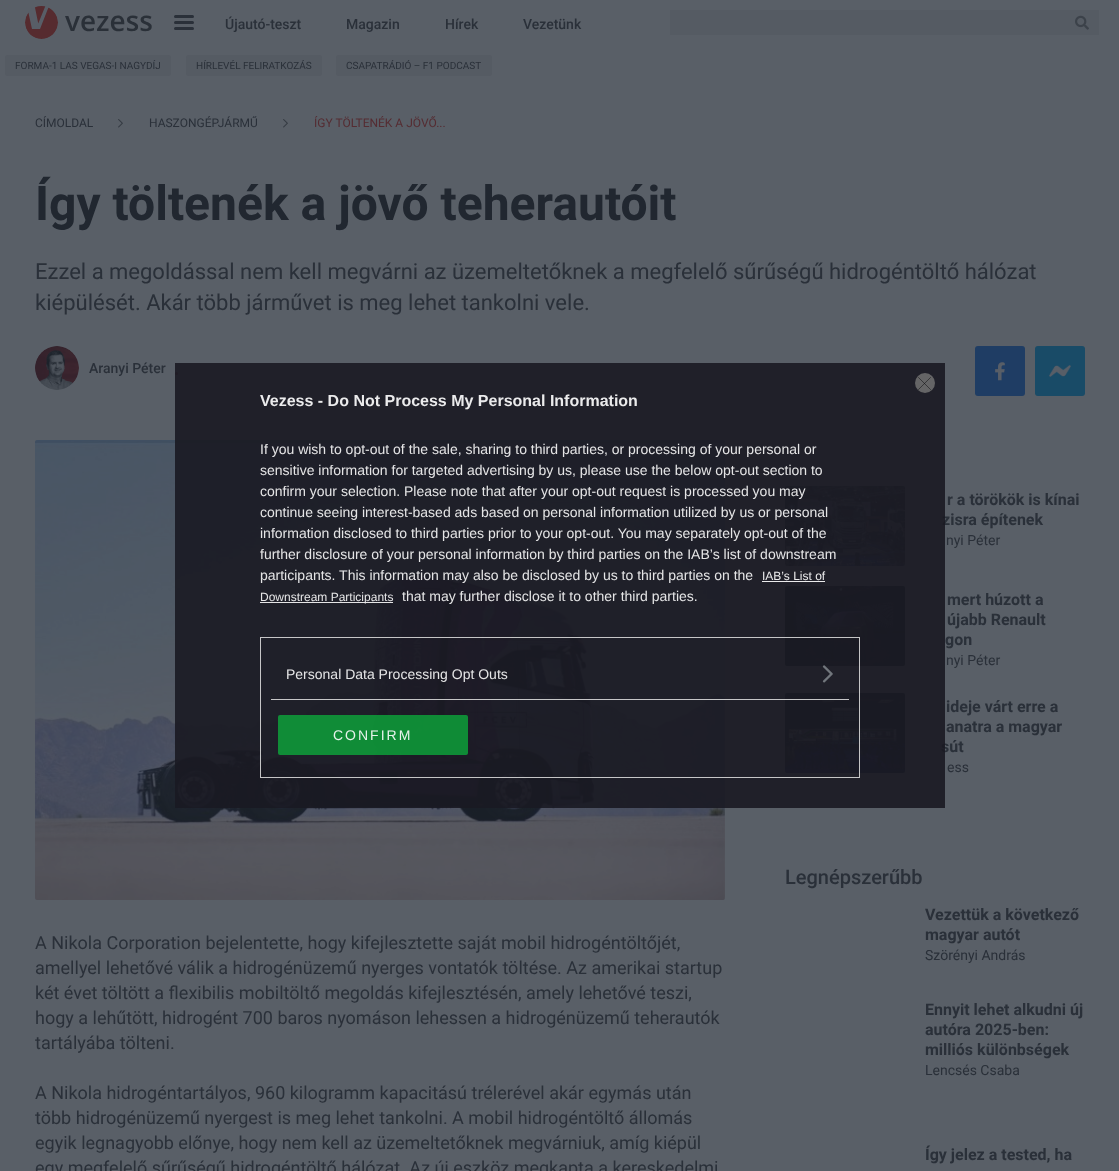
(async () => {
const canvas = document.querySelector("canvas")
canvas.width = 1119
canvas.height = 1171
const c = canvas.getContext("2d")
c.miterLimit = 4
c.fontKerning = "normal"
function T(s,x,y){c.fillText(s,x,y)}
function R(x,y,w,h){c.fillRect(x,y,w,h)}
function Q(x,y,w,h,r){c.beginPath();c.roundRect(x,y,w,h,r);c.fill()}
async function I(src,x,y,w,h){const img=new Image();img.src=src;await img.decode();c.drawImage(img,x,y,w,h)}
let path
c.fillStyle="#595f67"
R(0,0,1119,1171)
await I("1.png",25,6,127,33)
c.fillStyle="#2a3039"
Q(174,15,20,3,1.5)
Q(174,21,20,3,1.5)
Q(174,27,20,3,1.5)
c.font="500 14px Roboto"
T("Újautó-teszt",225,29)
T("Magazin",346,29)
T("Hírek",445,29)
T("Vezetünk",523,29)
c.fillStyle="#555b63"
R(670,10,429,25)
await I("2.png",1075,15,14,15)
Q(5,55,166,21,3)
c.font="10px Roboto"
c.fillStyle="#2a3039"
T("FORMA-1 LAS VEGAS-I NAGYDÍJ",15,69)
c.fillStyle="#555b63"
Q(186,55,136,21,3)
c.fillStyle="#2a3039"
T("HÍRLEVÉL FELIRATKOZÁS",196,69)
c.fillStyle="#555b63"
Q(336,55,156,21,3)
c.fillStyle="#2a3039"
T("CSAPATRÁDIÓ – F1 PODCAST",346,69)
c.font="12px Roboto"
T("CÍMOLDAL",35,127)
await I("3.png",118,119,5,9)
T("HASZONGÉPJÁRMŰ",149,127)
await I("3.png",283,119,5,9)
c.fillStyle="#552c32"
T("ÍGY TÖLTENÉK A JÖVŐ...",314,127)
c.font="bold 48px Roboto"
c.fillStyle="#212730"
T("Így töltenék a jövő teherautóit",35,220)
c.font="22px Roboto"
c.fillStyle="#2a3039"
T("Ezzel a megoldással nem kell megvárni az üzemeltetőknek a megfelelő sűrűségű hidrogéntöltő hálózat",35,279)
T("kiépülését. Akár több járművet is meg lehet tankolni vele.",35,310)
await I("4.png",35,346,44,44)
c.font="500 14px Roboto"
T("Aranyi Péter",89,373)
c.fillStyle="#552c32"
c.beginPath()
c.arc(176.5,373.5,1.5,0,7)
c.fill()
c.fillStyle="#1f3d64"
Q(975,346,50,50,3)
await I("5.png",995,362,10,19)
c.fillStyle="#194b67"
Q(1035,346,50,50,3)
await I("6.png",1049,365,22,12)
await I("7.png",35,440,690,460)
c.font="18px Roboto"
c.fillStyle="#2a3039"
T("A Nikola Corporation bejelentette, hogy kifejlesztette saját mobil hidrogéntöltőjét,",35,949)
T("amellyel lehetővé válik a hidrogénüzemű nyerges vontatók töltése. Az amerikai startup",35,974)
T("két évet töltött a flexibilis mobiltöltő megoldás kifejlesztésén, amely lehetővé teszi,",35,999)
T("hogy a lehűtött, hidrogént 700 baros nyomáson lehessen a hidrogénüzemű teherautók",35,1024)
T("tartályába tölteni.",35,1049)
T("A Nikola hidrogéntartályos, 960 kilogramm kapacitású trélerével akár egymás után",35,1099)
T("több hidrogénüzemű nyergest is meg lehet tankolni. A mobil hidrogéntöltő állomás",35,1124)
T("egyik legnagyobb előnye, hogy nem kell az üzemeltetőknek megvárniuk, amíg kiépül",35,1149)
T("egy megfelelő sűrűségű hidrogéntöltő hálózat. Az új eszköz megkapta a kereskedelmi",35,1174)
await I("8.png",785,486,120,80)
c.font="bold 16px Roboto"
T("r a törökök is kínai",947,505)
T("zisra építenek",942,525)
c.font="14px Roboto"
T("nyi Péter",946,545)
await I("9.png",785,586,120,80)
c.font="bold 16px Roboto"
T("mert húzott a",947,605)
T("újabb Renault",947,625)
T("gon",945,645)
c.font="14px Roboto"
T("nyi Péter",946,665)
await I("10.png",785,693,120,80)
c.font="bold 16px Roboto"
T("ideje várt erre a",946,712)
T("anatra a magyar",946,732)
T("sút",941,752)
c.font="14px Roboto"
T("ess",947,772)
c.font="500 20px Roboto"
T("Legnépszerűbb",785,884)
c.font="bold 16px Roboto"
T("Vezettük a következő",925,920)
T("magyar autót",925,940)
c.font="14px Roboto"
T("Szörényi András",925,960)
c.font="bold 16px Roboto"
T("Ennyit lehet alkudni új",925,1015)
T("autóra 2025-ben:",925,1035)
T("milliós különbségek",925,1055)
c.font="14px Roboto"
T("Lencsés Csaba",925,1075)
c.font="bold 16px Roboto"
T("Így jelez a tested, ha",925,1160)
c.fillStyle="#191922e6"
R(175,363,770,445)
c.fillStyle="#656566"
c.beginPath()
c.arc(925,383,10,0,7)
c.fill()
path = new Path2D("M918.5 377.5l12 12m0-12l-12 12")
c.strokeStyle="#09090a"
c.lineWidth=0.5
c.lineCap="round"
c.lineJoin="round"
c.stroke(path)
c.font="bold 16px Liberation Sans"
c.fillStyle="#ebebec"
T("Vezess - Do Not Process My Personal Information",260,406)
c.font="14px Liberation Sans"
c.fillStyle="#e5e5e6"
T("If you wish to opt-out of the sale, sharing to third parties, or processing of your personal or",260,454)
T("sensitive information for targeted advertising by us, please use the below opt-out section to",260,475)
T("confirm your selection. Please note that after your opt-out request is processed you may",260,496)
T("continue seeing interest-based ads based on personal information utilized by us or personal",260,517)
T("information disclosed to third parties prior to your opt-out. You may separately opt-out of the",260,538)
T("further disclosure of your personal information by third parties on the IAB’s list of downstream",260,559)
T("participants. This information may also be disclosed by us to third parties on the",260,580)
c.font="12px Liberation Sans"
c.fillStyle="#ebebec"
T("IAB’s List of",762,580)
R(762,581,63,1)
c.fillStyle="#fbfbfbe6"
R(260,602,133,1)
c.fillStyle="#e5e5e6"
T("Downstream Participants",260,601)
c.font="14px Liberation Sans"
T("that may further disclose it to other third parties.",402,601)
c.strokeStyle="#d8d8d8e6"
c.lineWidth=1
c.lineJoin="miter"
c.strokeRect(260.5,637.5,599,140)
c.fillStyle="#d8d8d8e6"
R(271,699,578,1)
c.fillStyle="#e5e5e6"
T("Personal Data Processing Opt Outs",286,679)
await I("11.png",822,665,11,18)
c.fillStyle="#0e9839e6"
Q(278,715,190,40,2)
c.letterSpacing="2px"
c.fillStyle="#e7f3eb"
T("CONFIRM",333,740)
})()
